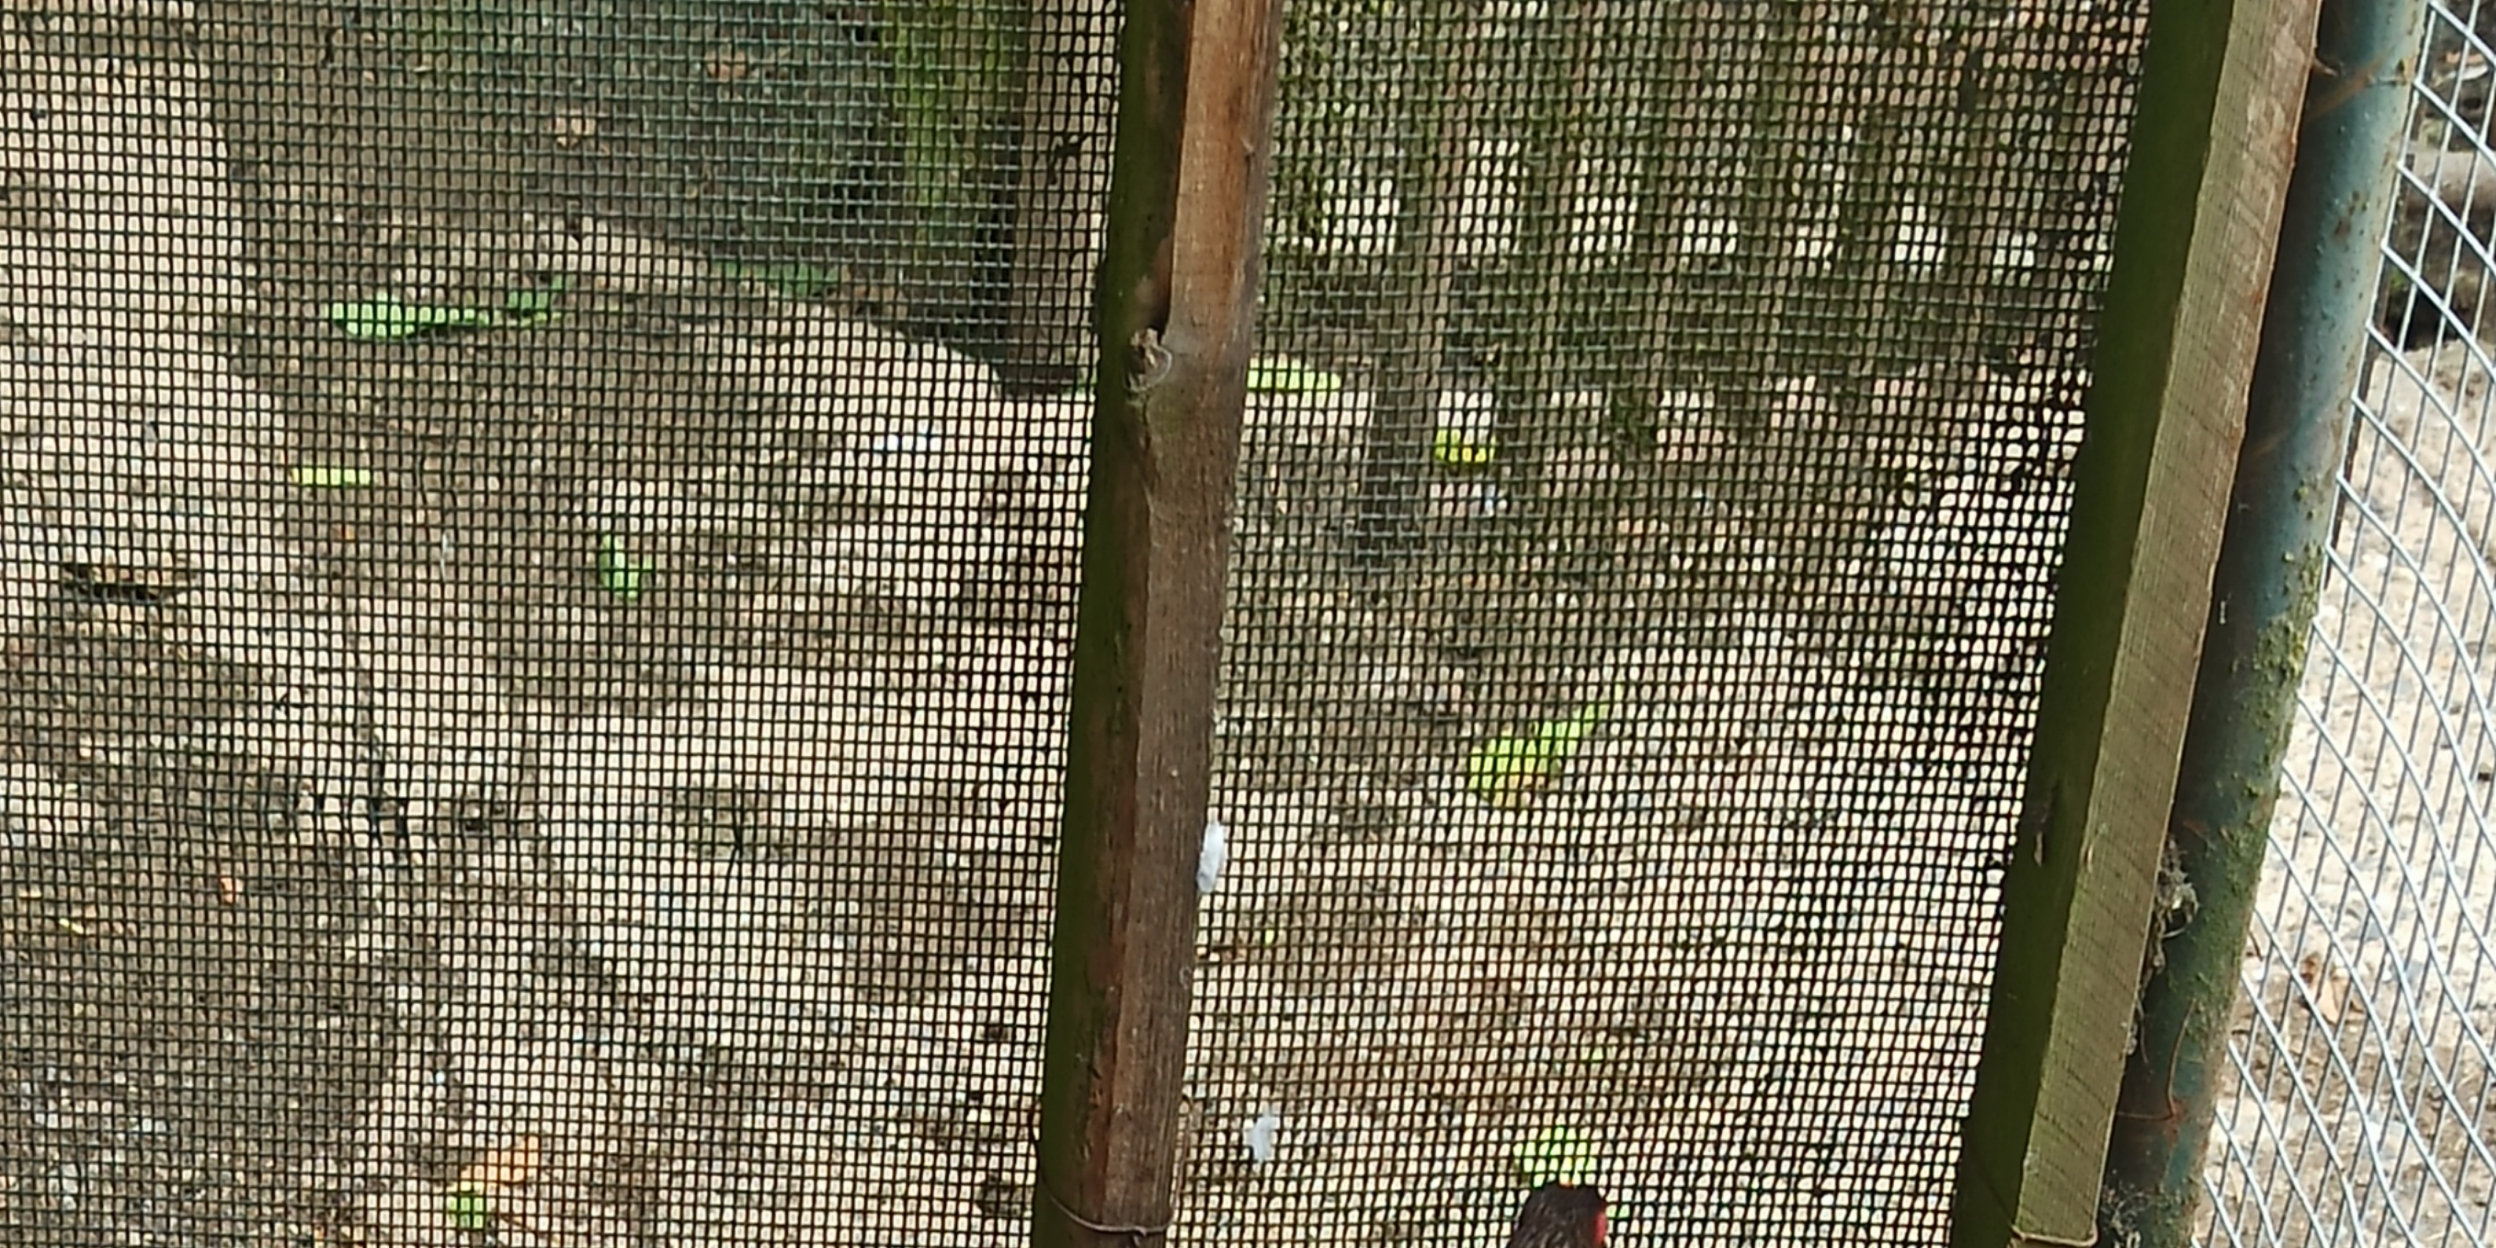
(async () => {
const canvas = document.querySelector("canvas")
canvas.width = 2496
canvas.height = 1248
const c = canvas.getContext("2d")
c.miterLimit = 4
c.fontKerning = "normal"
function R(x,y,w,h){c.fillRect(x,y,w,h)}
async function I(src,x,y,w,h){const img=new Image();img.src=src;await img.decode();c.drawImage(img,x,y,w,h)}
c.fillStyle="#fff"
R(0,0,2496,1248)
await I("1.png",0,0,2496,1248)
})()
